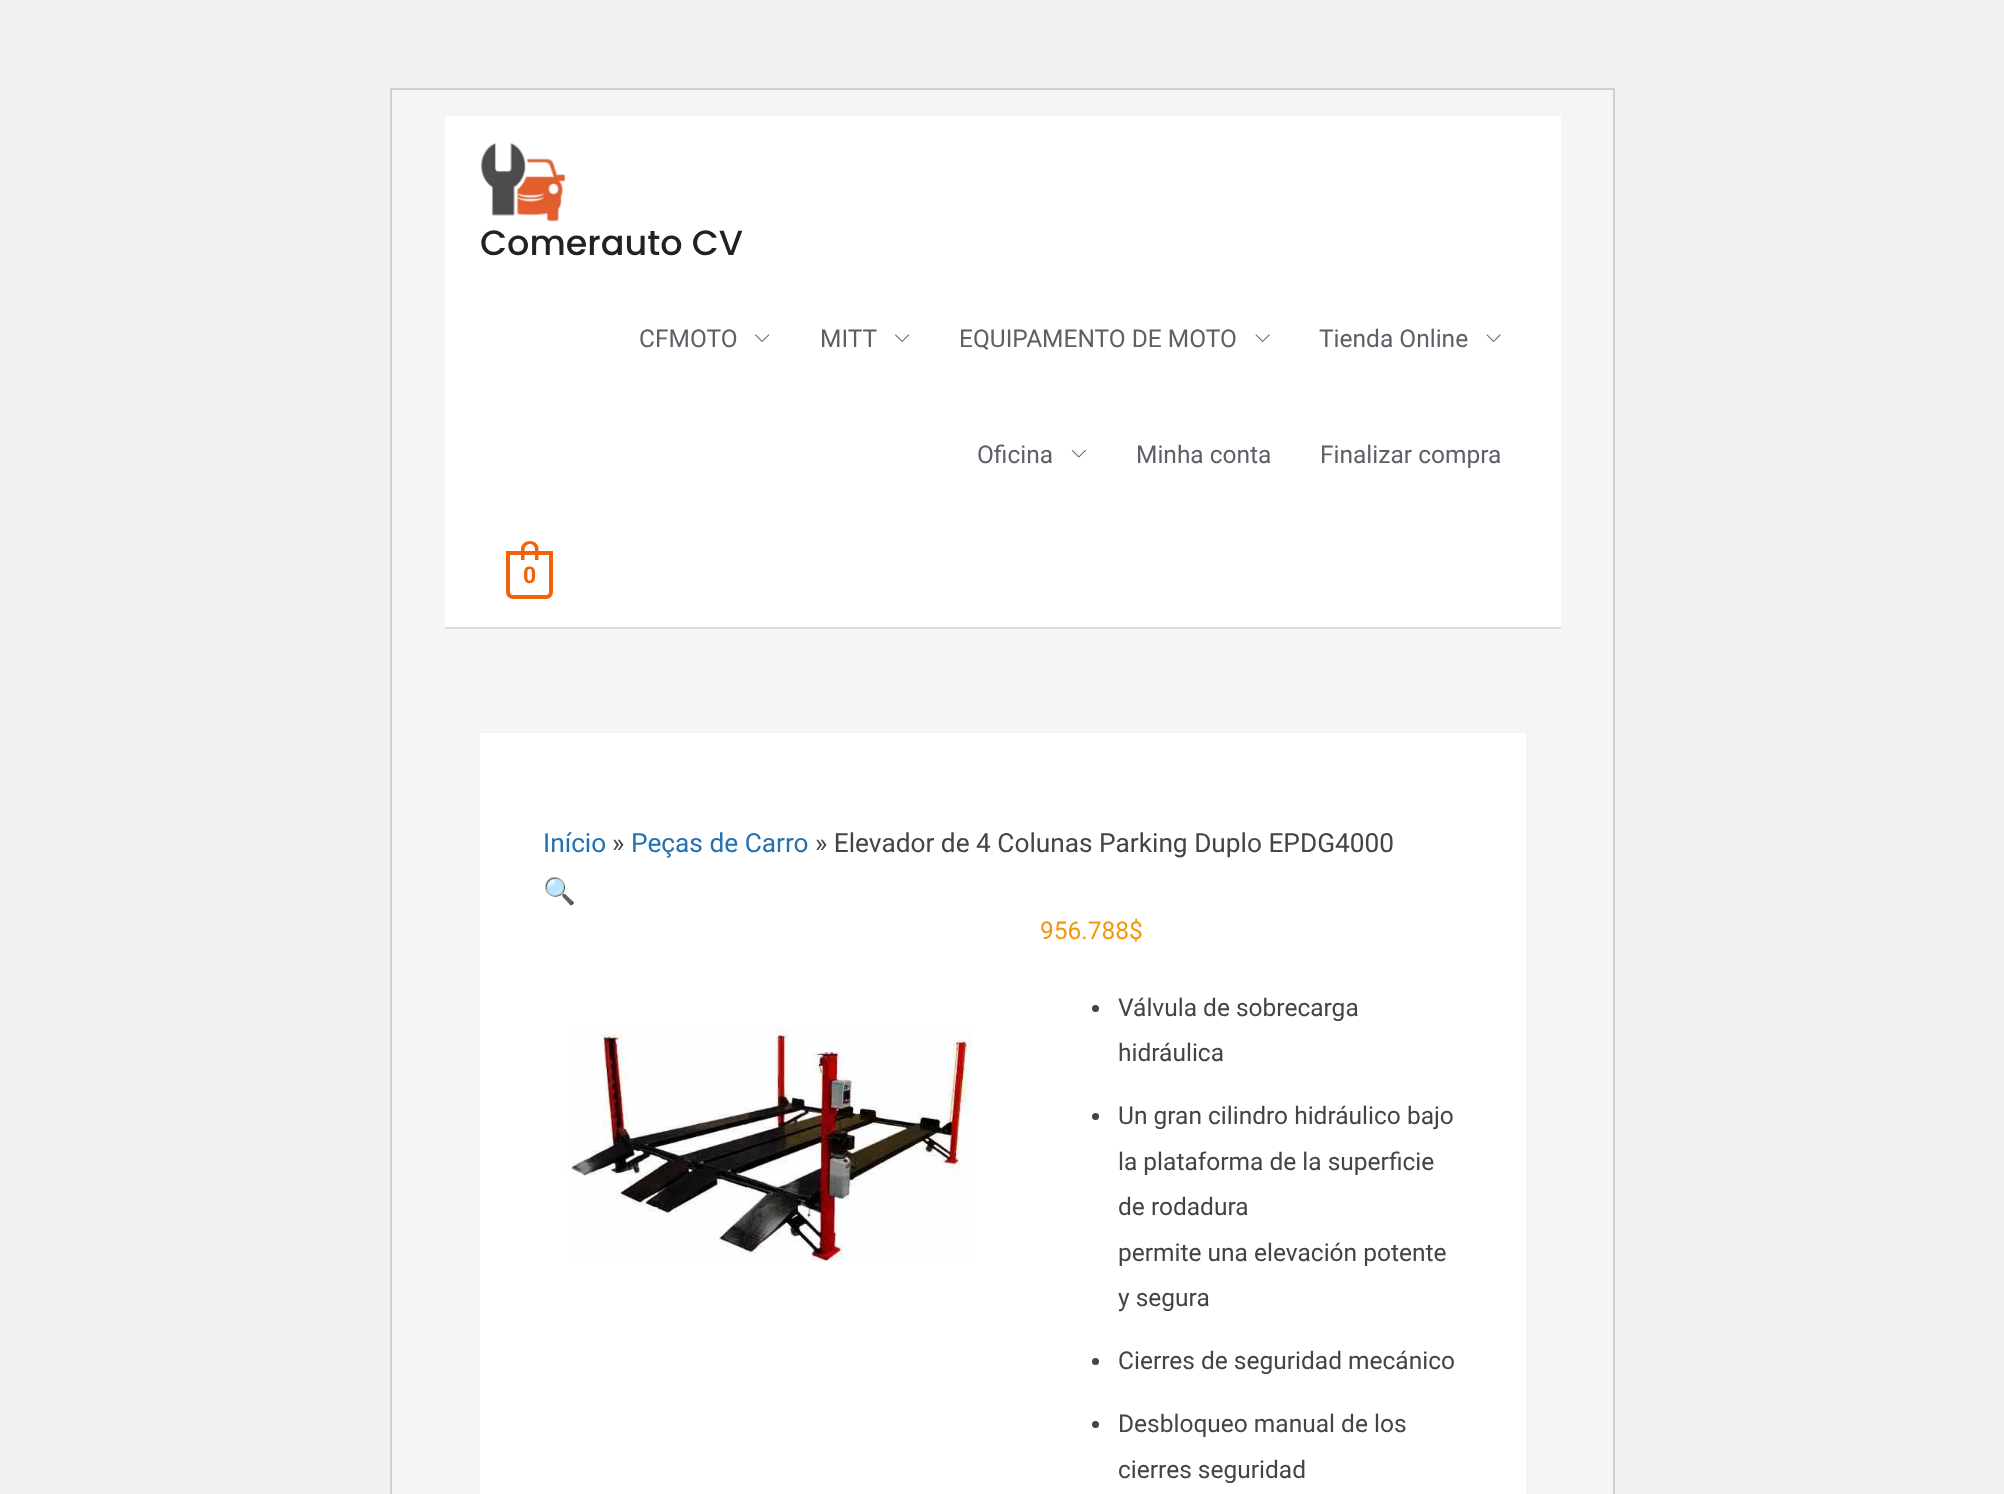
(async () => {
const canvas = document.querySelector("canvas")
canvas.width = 2004
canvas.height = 1494
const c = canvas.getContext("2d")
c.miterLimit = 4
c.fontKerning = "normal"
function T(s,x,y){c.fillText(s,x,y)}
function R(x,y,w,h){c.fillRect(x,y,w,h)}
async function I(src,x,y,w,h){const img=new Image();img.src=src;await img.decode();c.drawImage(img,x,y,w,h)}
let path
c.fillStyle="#f1f1f1"
R(0,0,2004,1494)
c.fillStyle="#f5f5f5"
c.beginPath()
c.rect(391,89,1223,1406)
c.fill()
c.strokeStyle="#ccd0d4"
c.lineWidth=2
c.stroke()
c.fillStyle="#fff"
R(445,116,1116,511)
c.fillStyle="#ddd"
R(445,627,1116,2)
await I("1.png",480,142,86,80)
c.font="500 35px Poppins"
c.fillStyle="#222"
T("Comerauto CV",480,255)
c.font="24.5px Roboto"
c.fillStyle="#5d6167"
T("CFMOTO",639,347)
await I("2.png",755,334,15,8)
T("MITT",820,347)
await I("2.png",895,334,15,8)
T("EQUIPAMENTO DE MOTO",959,347)
await I("3.png",1255,334,15,8)
T("Tienda Online",1319,347)
await I("3.png",1486,334,15,8)
T("Oficina",977,463)
await I("4.png",1071,449,15,9)
T("Minha conta",1136,463)
T("Finalizar compra",1320,463)
c.beginPath()
c.roundRect(508,553,43,44,[0,0,5,5])
c.strokeStyle="#f16209"
c.lineWidth=4
c.stroke()
c.fillStyle="#f16209"
path = new Path2D("M530 541c5 0 8.5 3.5 8.5 8.5v10.5h-17.5v-10.5c0-5 4-8.5 9-8.5zm0 3c3 0 5 2.5 5 5.5v10.5h-10.5v-10.5c0-3 2.5-5.5 5.5-5.5z")
c.fill(path,"evenodd")
c.font="bold 23px Roboto"
T("0",523,583)
c.fillStyle="#fff"
R(480,733,1046,761)
c.font="26.25px Roboto"
c.fillStyle="#2271b1"
T("Início",543,852)
c.fillStyle="#444"
T("»",612,852)
c.fillStyle="#2271b1"
T("Peças de Carro",631,852)
c.fillStyle="#444"
T("» Elevador de 4 Colunas Parking Duplo EPDG4000",815,852)
c.font="26.25px Noto Color Emoji"
c.fillStyle="#2271b1"
T("🔍",543,900)
await I("5.png",567,1026,405,235)
c.font="24.5px Roboto"
c.fillStyle="#f5970b"
T("956.788$",1040,939)
c.fillStyle="#444"
c.beginPath()
c.arc(1095.5,1008.5,3.5,0,7)
c.fill()
T("Válvula de sobrecarga",1118,1016)
T("hidráulica",1118,1061)
c.beginPath()
c.arc(1095.5,1116.5,3.5,0,7)
c.fill()
T("Un gran cilindro hidráulico bajo",1118,1124)
T("la plataforma de la superficie",1118,1170)
T("de rodadura",1118,1215)
T("permite una elevación potente",1118,1261)
T("y segura",1118,1306)
c.beginPath()
c.arc(1095.5,1361.5,3.5,0,7)
c.fill()
T("Cierres de seguridad mecánico",1118,1369)
c.beginPath()
c.arc(1095.5,1424.5,3.5,0,7)
c.fill()
T("Desbloqueo manual de los",1118,1432)
T("cierres seguridad",1118,1478)
})()
